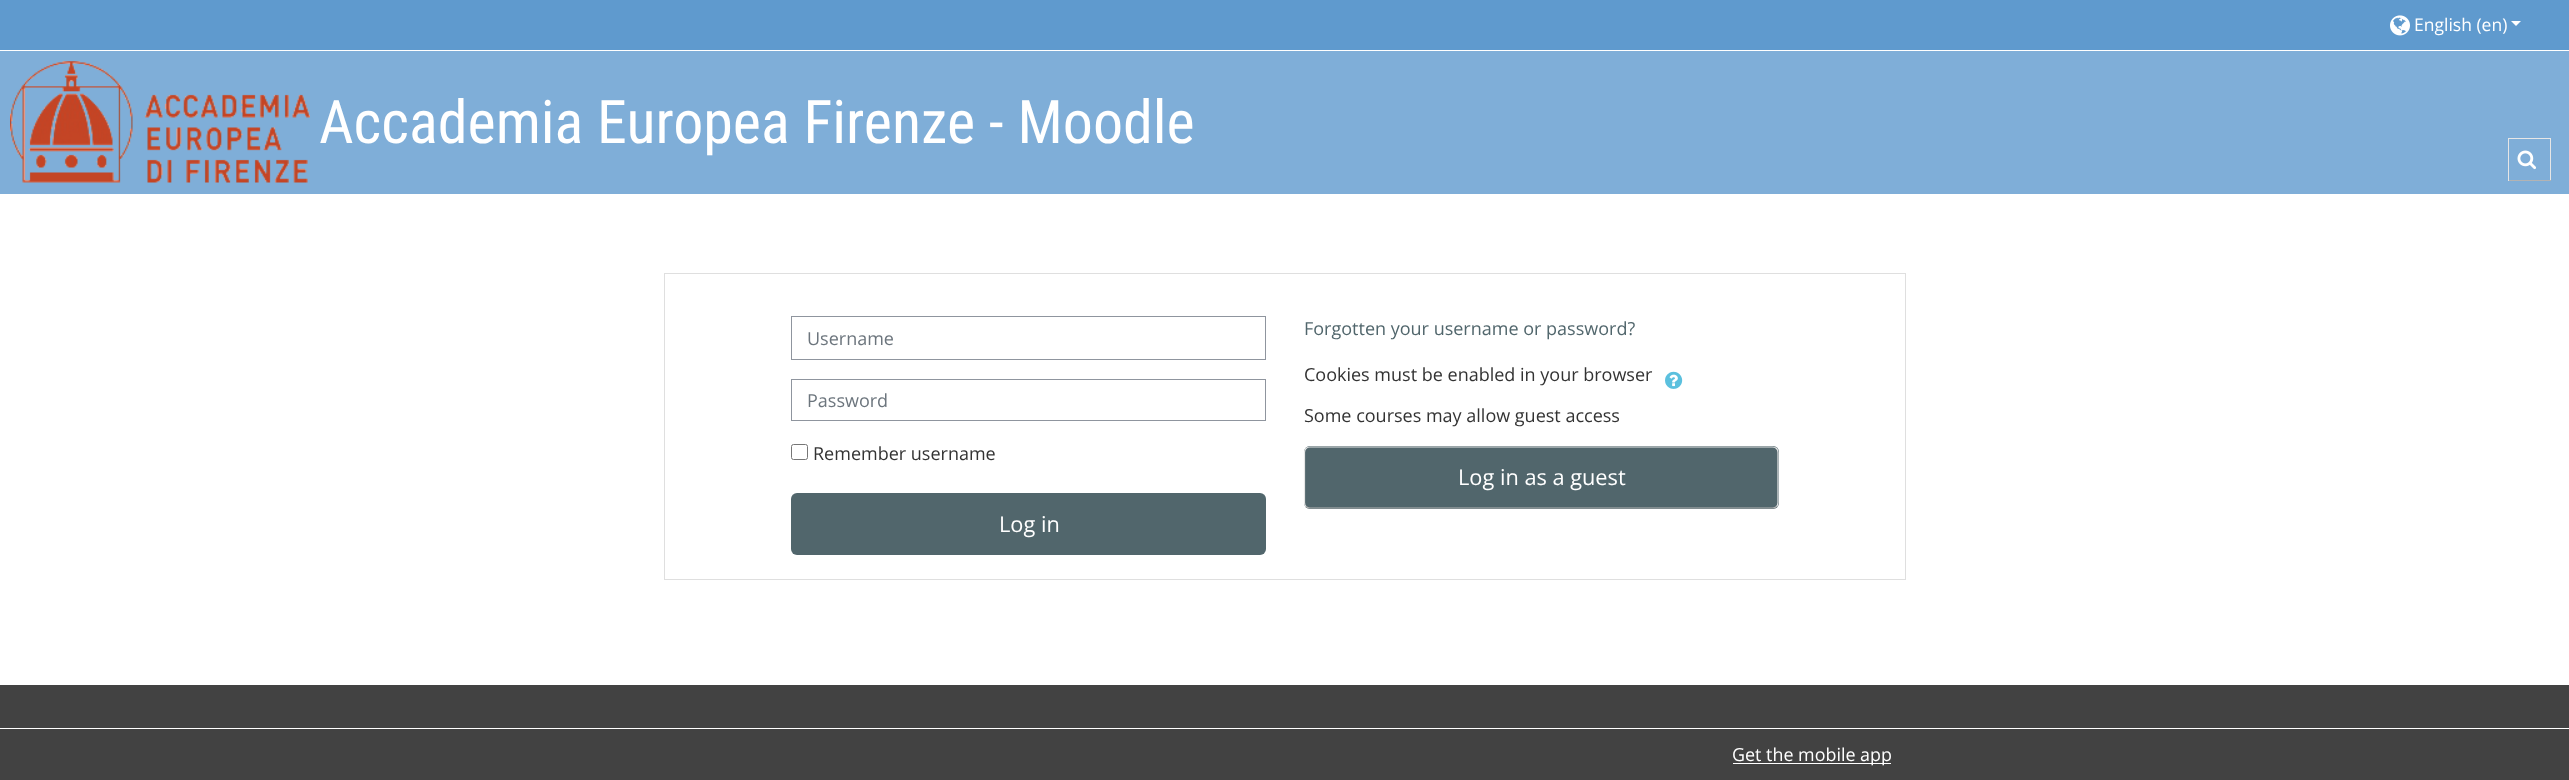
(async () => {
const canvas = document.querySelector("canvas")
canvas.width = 2569
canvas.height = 780
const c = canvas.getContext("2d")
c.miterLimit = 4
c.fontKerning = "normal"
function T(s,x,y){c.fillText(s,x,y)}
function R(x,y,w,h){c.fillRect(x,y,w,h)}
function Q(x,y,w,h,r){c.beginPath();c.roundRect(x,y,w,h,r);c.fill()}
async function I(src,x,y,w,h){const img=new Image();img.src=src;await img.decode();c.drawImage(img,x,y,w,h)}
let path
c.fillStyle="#fff"
R(0,0,2569,780)
c.fillStyle="#7faed8"
R(0,51,2569,143)
c.fillStyle="#5f9ace"
R(0,0,2569,50)
await I("1.png",2390,15,20,21)
c.font="17.5px Open Sans"
c.fillStyle="#fff"
T("English (en)",2414,31)
path = new Path2D("M2511 21h10l-5 5z")
c.fill(path)
await I("2.png",10,61,300,122)
c.font="60px Roboto Condensed"
T("Accademia Europea Firenze - Moodle",319,143)
c.fillStyle="#e6e6e6"
R(2508,138,43,1)
R(2550,138,1,43)
c.fillStyle="#b3b3b3"
R(2508,180,43,1)
c.fillStyle="#e6e6e6"
R(2508,138,1,43)
await I("3.png",2517,150,19,20)
c.strokeStyle="#dfdfdf"
c.strokeRect(664.5,273.5,1241,306)
c.strokeStyle="#8f959e"
c.strokeRect(791.5,316.5,474,43)
c.font="18px Open Sans"
c.fillStyle="#6c757d"
T("Username",807,345)
c.strokeRect(791.5,379.5,474,41)
T("Password",807,407)
c.beginPath()
c.roundRect(791.5,444.5,16,15,2)
c.strokeStyle="#767676"
c.stroke()
c.fillStyle="#333"
T("Remember username",813,460)
c.fillStyle="#51666c"
Q(791,493,475,62,6)
c.font="21.75px Open Sans"
c.fillStyle="#fff"
T("Log in",999,532)
c.font="18px Open Sans"
c.fillStyle="#51666c"
T("Forgotten your username or password?",1304,335)
c.fillStyle="#333"
T("Cookies must be enabled in your browser",1304,381)
await I("4.png",1665,371,18,18)
T("Some courses may allow guest access",1304,422)
c.fillStyle="#51666c"
Q(1304,446,475,63,6)
path = new Path2D("M1776.5 506.5c-1 1-2.5 1.5-4 1.5h-462.5c-1.5 0-3-.5-4-1.5")
c.strokeStyle="#b3b3b3"
c.lineWidth=1.2
c.stroke(path)
path = new Path2D("M1306 506.5c-1-1-1.5-2.5-1.5-4v-50c0-1.5 .5-3 1.5-4c1-1 2.5-1.5 4-1.5h462.5c1.5 0 3 .5 4 1.5c1 1 1.5 2.5 1.5 4v50c0 1.5-.5 3-1.5 4")
c.strokeStyle="#e6e6e6"
c.stroke(path)
c.font="21.75px Open Sans"
c.fillStyle="#fff"
T("Log in as a guest",1458,485)
c.fillStyle="#424242"
R(0,685,2569,95)
c.fillStyle="#fff"
R(0,728,2569,1)
R(1733,763,158,1)
c.font="17.9px Open Sans"
T("Get the mobile app",1732,761)
})()
